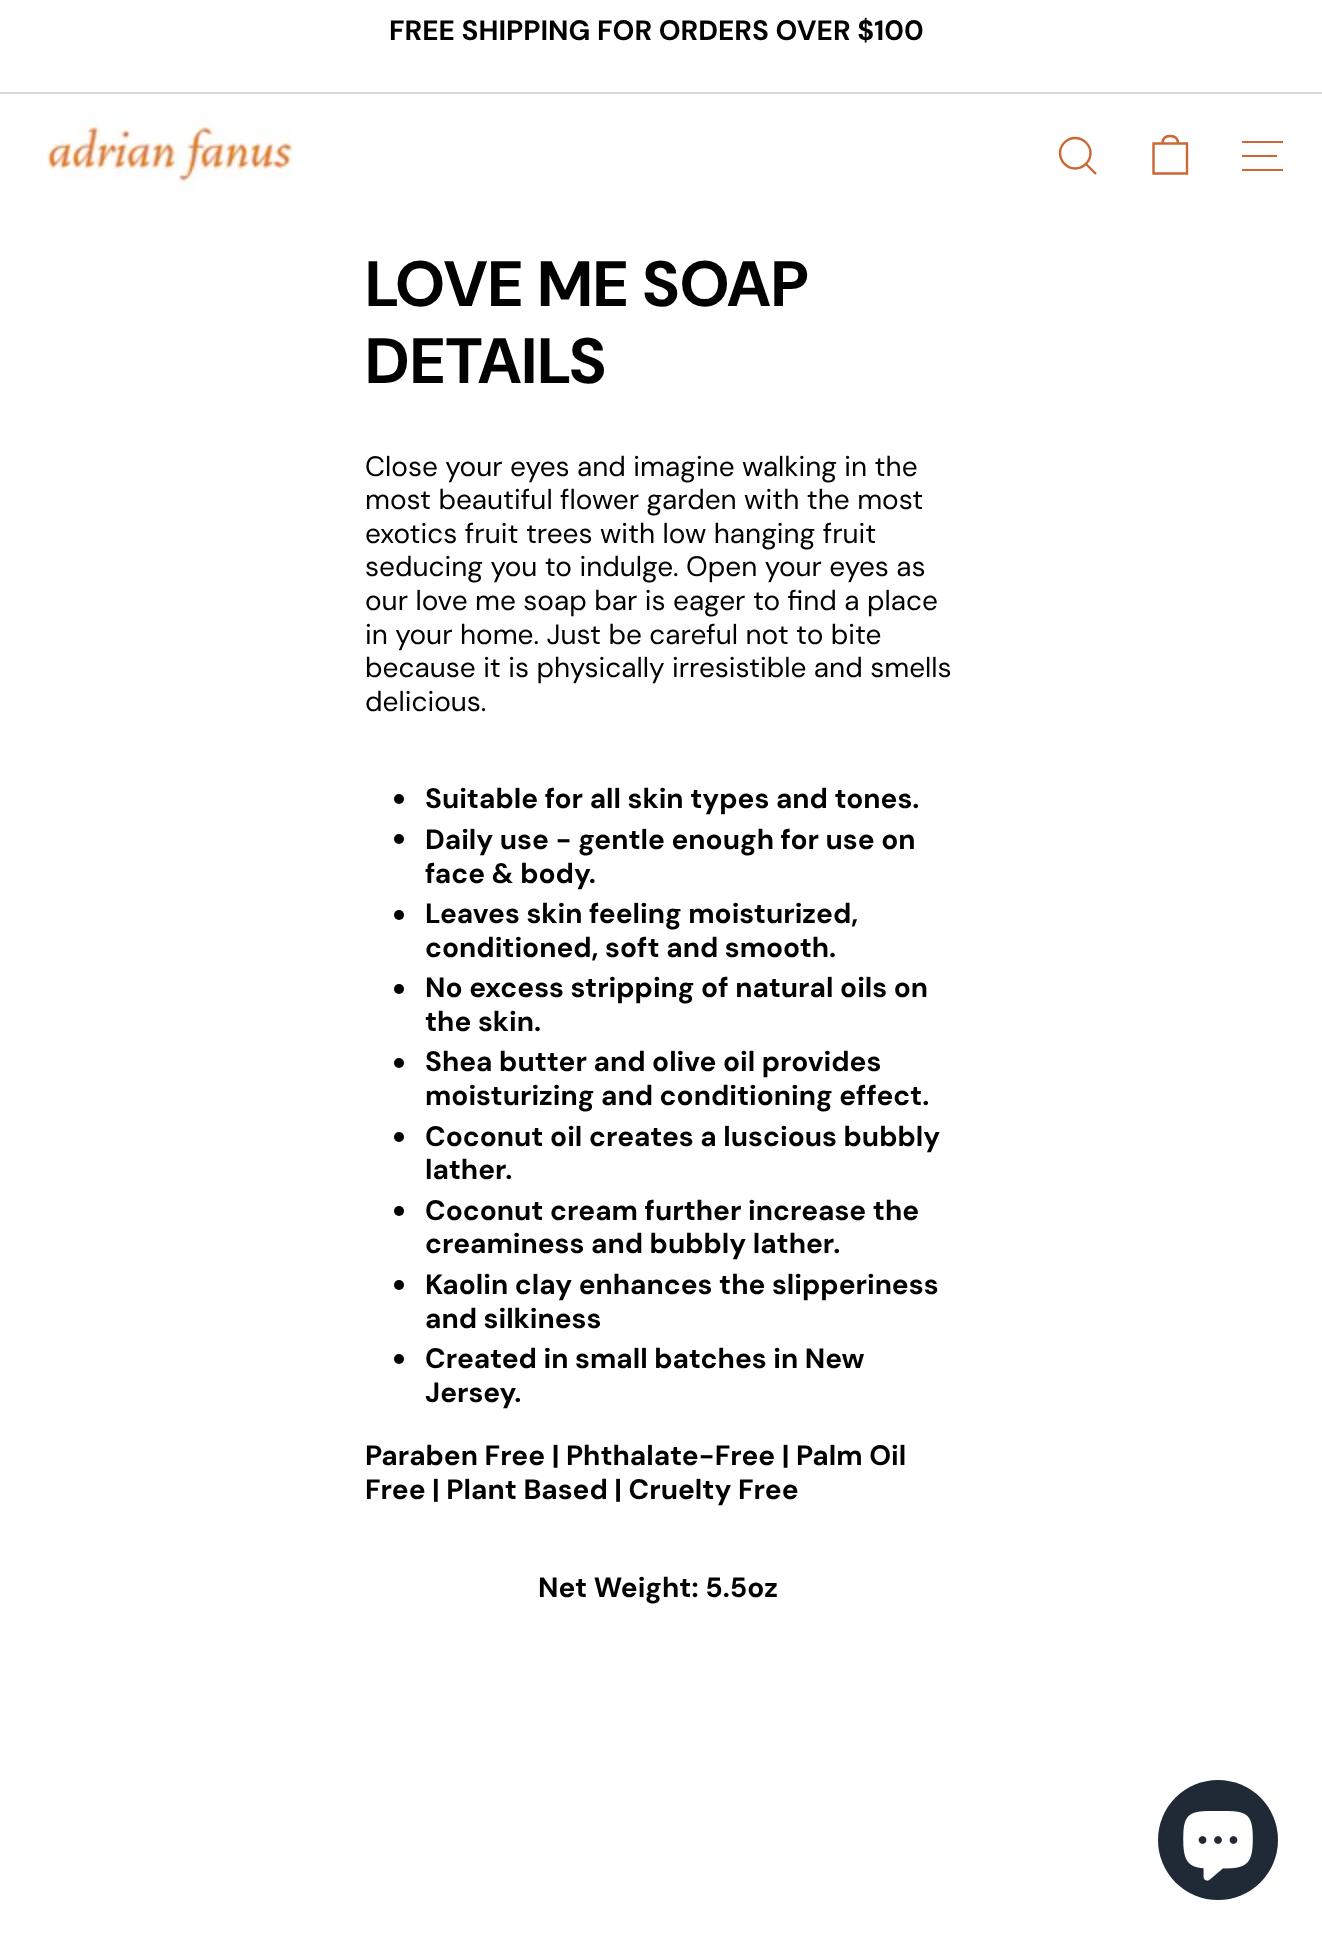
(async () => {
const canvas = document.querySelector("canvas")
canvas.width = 1322
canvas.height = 1942
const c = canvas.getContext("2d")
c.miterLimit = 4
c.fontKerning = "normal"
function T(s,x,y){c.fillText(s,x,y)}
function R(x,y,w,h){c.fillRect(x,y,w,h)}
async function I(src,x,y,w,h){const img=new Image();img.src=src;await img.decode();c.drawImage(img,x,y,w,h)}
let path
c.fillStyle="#fff"
R(0,0,1322,1942)
c.font="bold 28px 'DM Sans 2'"
c.fillStyle="#010101"
T("FREE SHIPPING FOR ORDERS OVER $100",389,40)
c.fillStyle="#d9d9d9"
R(0,92,1322,2)
await I("1.png",47,117,246,75)
path = new Path2D("M1090.5 153c0 8.5-7 15.5-15.5 15.5c-8 0-15-7-15-15.5c0-8 7-15 15-15c8.5 0 15.5 7 15.5 15m5.5 21l-10-10")
c.strokeStyle="#c63"
c.lineWidth=2.4
c.stroke(path)
path = new Path2D("M1162.5 143.5c0-6 3.5-7.5 7.5-7.5c4.5 0 8 1.5 8 7.5m-24.5 0h33.5v30h-33.5z")
c.stroke(path)
c.fillStyle="#c63"
R(1242,141,41,2)
R(1242,155,35,2)
R(1242,169,41,2)
c.font="bold 64px DM Sans"
c.fillStyle="#010101"
T("LOVE ME SOAP",365,306)
T("DETAILS",365,383)
c.font="28px DM Sans"
T("Close your eyes and imagine walking in the",365,476)
T("most beautiful flower garden with the most",365,509)
T("exotics fruit trees with low hanging fruit",365,543)
T("seducing you to indulge. Open your eyes as",365,576)
T("our love me soap bar is eager to find a place",365,610)
T("in your home. Just be careful not to bite",365,644)
T("because it is physically irresistible and smells",365,677)
T("delicious.",365,711)
c.beginPath()
c.arc(399,799,5,0,7)
c.fill()
c.font="bold 28px 'DM Sans 2'"
T("Suitable for all skin types and tones.",425,808)
c.beginPath()
c.arc(399,839,5,0,7)
c.fill()
T("Daily use - gentle enough for use on",425,849)
T("face & body.",425,883)
c.beginPath()
c.arc(399,915,5,0,7)
c.fill()
T("Leaves skin feeling moisturized,",425,923)
T("conditioned, soft and smooth.",425,957)
c.beginPath()
c.arc(399,989,5,0,7)
c.fill()
T("No excess stripping of natural oils on",425,997)
T("the skin.",425,1031)
c.beginPath()
c.arc(399,1063,5,0,7)
c.fill()
T("Shea butter and olive oil provides",425,1071)
T("moisturizing and conditioning effect.",425,1105)
c.beginPath()
c.arc(399,1137,5,0,7)
c.fill()
T("Coconut oil creates a luscious bubbly",425,1146)
T("lather.",425,1179)
c.beginPath()
c.arc(399,1211,5,0,7)
c.fill()
T("Coconut cream further increase the",425,1220)
T("creaminess and bubbly lather.",425,1253)
c.beginPath()
c.arc(399,1285,5,0,7)
c.fill()
T("Kaolin clay enhances the slipperiness",425,1294)
T("and silkiness",425,1328)
c.beginPath()
c.arc(399,1359,5,0,7)
c.fill()
T("Created in small batches in New",425,1368)
T("Jersey.",425,1402)
T("Paraben Free | Phthalate-Free | Palm Oil",365,1465)
T("Free | Plant Based | Cruelty Free",365,1499)
T("Net Weight: 5.5oz",538,1597)
c.fillStyle="#202a36"
c.beginPath()
c.arc(1218,1840,60,0,7)
c.fill()
await I("2.png",1183,1811,70,70)
})()
